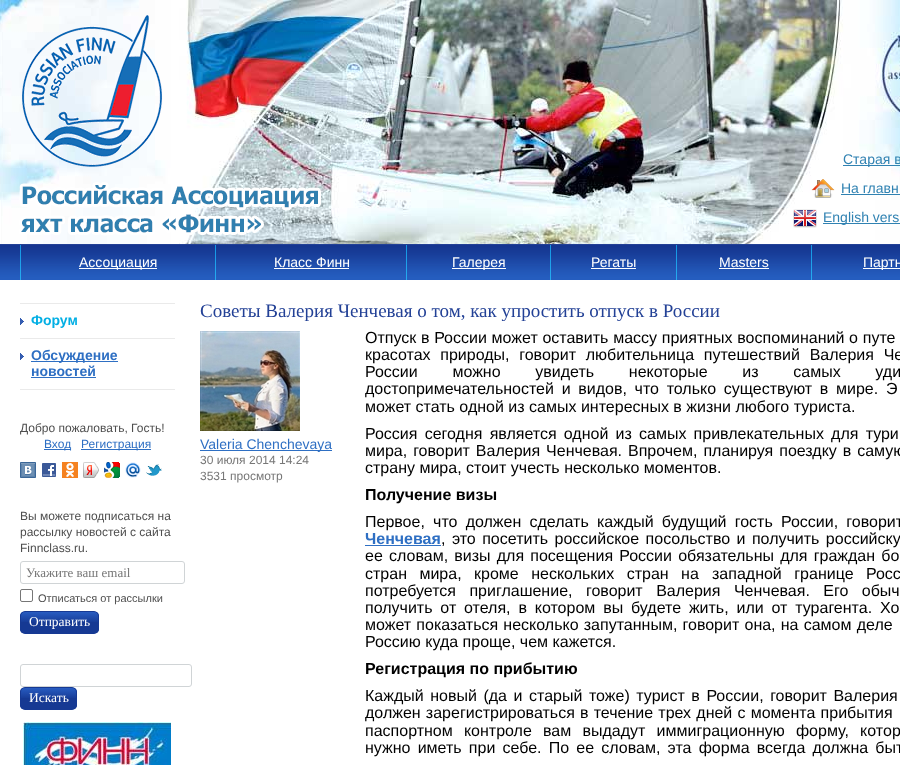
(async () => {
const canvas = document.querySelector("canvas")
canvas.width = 900
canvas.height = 765
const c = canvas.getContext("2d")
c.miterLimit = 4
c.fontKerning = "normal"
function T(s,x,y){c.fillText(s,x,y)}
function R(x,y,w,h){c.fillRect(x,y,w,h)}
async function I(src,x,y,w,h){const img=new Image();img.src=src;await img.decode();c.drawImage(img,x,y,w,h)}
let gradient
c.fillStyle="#fff"
R(0,0,900,765)
await I("1.png",0,0,900,244)
await I("2.png",22,15,140,152)
await I("3.png",19,182,302,54)
c.fillStyle="#3082b2"
R(843,165,57,1)
c.font="14px Liberation Sans"
T("Старая в",843,164)
await I("4.png",811,179,24,19)
T("На главн",841,193)
R(841,194,59,1)
await I("5.png",793,209,24,19)
R(823,223,77,1)
T("English vers",823,222)
await I("6.png",0,244,900,36)
await I("7.png",20,245,1,35)
await I("7.png",215,245,1,35)
c.fillStyle="#fff"
R(79,268,78,1)
T("Ассоциация",79,267)
await I("7.png",406,245,1,35)
T("Класс Финн",274,267)
R(274,268,75,1)
await I("7.png",550,245,1,35)
R(452,268,54,1)
T("Галерея",452,267)
await I("7.png",676,245,1,35)
T("Регаты",591,267)
R(591,268,45,1)
await I("7.png",811,245,1,35)
T("Masters",719,267)
R(719,268,50,1)
R(863,268,37,1)
T("Партн",863,267)
c.fillStyle="#eaeaea"
R(20,303,155,1)
R(20,338,155,1)
await I("8.png",20,318,4,7)
c.font="bold 14px Liberation Sans"
c.fillStyle="#03afe4"
T("Форум",31,325)
c.fillStyle="#eaeaea"
R(20,389,155,1)
await I("8.png",20,353,4,7)
c.fillStyle="#2e6fc3"
R(31,361,87,1)
T("Обсуждение",31,360)
T("новостей",31,376)
R(31,377,65,1)
c.font="12px Liberation Sans"
c.fillStyle="#4e4e4e"
T("Добро пожаловать, Гость!",20,432)
c.fillStyle="#2e6fc3"
R(44,449,27,1)
T("Вход",44,448)
R(81,449,70,1)
T("Регистрация",81,448)
await I("9.png",20,462,16,16)
await I("10.png",42,463,14,14)
await I("11.png",62,462,16,16)
await I("12.png",83,462,16,16)
await I("13.png",104,462,16,16)
await I("14.png",125,462,16,16)
await I("15.png",146,464,16,12)
c.fillStyle="#4e4e4e"
T("Вы можете подписаться на",20,520)
T("рассылку новостей с сайта",20,536)
T("Finnclass.ru.",20,552)
c.beginPath()
c.roundRect(20.5,561.5,164,22,2.5)
c.strokeStyle="#d0d4d6"
c.stroke()
c.font="13px Liberation Serif"
c.fillStyle="#777"
T("Укажите ваш email",26,577)
c.beginPath()
c.roundRect(20.5,589.5,12,12,1.5)
c.strokeStyle="#767676"
c.stroke()
c.font="11px Liberation Sans"
c.fillStyle="#4e4e4e"
T("Отписаться от рассылки",38,602)
c.save()
c.beginPath()
c.roundRect(20,611,79,23,5)
c.clip()
gradient = c.createLinearGradient(60,612,60,633)
gradient.addColorStop(0,"#285cc1")
gradient.addColorStop(.49,"#173c97")
gradient.addColorStop(.5,"#163993")
gradient.addColorStop(1,"#163993")
c.fillStyle = gradient
R(20,612,79,21)
c.restore()
c.beginPath()
c.roundRect(20.5,611.5,78,22,4.5)
c.strokeStyle="#163993"
c.stroke()
c.font="13.5px Liberation Serif"
c.fillStyle="#fff"
T("Отправить",29,626)
c.beginPath()
c.roundRect(20.5,664.5,171,22,2.5)
c.strokeStyle="#d0d4d6"
c.stroke()
c.save()
c.beginPath()
c.roundRect(20,687,57,23,5)
c.clip()
gradient = c.createLinearGradient(49,688,49,709)
gradient.addColorStop(0,"#285cc1")
gradient.addColorStop(.49,"#173c97")
gradient.addColorStop(.5,"#163993")
gradient.addColorStop(1,"#163993")
c.fillStyle = gradient
R(20,688,57,21)
c.restore()
c.beginPath()
c.roundRect(20.5,687.5,56,22,4.5)
c.strokeStyle="#163993"
c.stroke()
T("Искать",29,702)
await I("16.png",23,722,148,43)
c.font="19px Liberation Serif"
c.fillStyle="#234196"
T("Советы Валерия Ченчевая о том, как упростить отпуск в России",200,317)
await I("17.png",200,331,100,100)
c.fillStyle="#2e6fc3"
R(200,450,132,1)
c.font="14px Liberation Sans"
T("Valeria Chenchevaya",200,449)
c.font="12px Liberation Sans"
c.fillStyle="#777"
T("30 июля 2014 14:24",200,464)
T("3531 просмотр",200,480)
c.wordSpacing="0.25px"
c.font="16px Liberation Sans"
c.fillStyle="#000"
T("Отпуск в России может оставить массу приятных воспоминаний о путе",365,343)
c.wordSpacing="5.25px"
T("красотах природы, говорит любительница путешествий Валерия Че",365,360)
c.wordSpacing="30.25px"
T("России можно увидеть некоторые из самых уди",365,377)
c.wordSpacing="3.25px"
T("достопримечательностей и видов, что только существуют в мире. Э",365,394)
c.wordSpacing="0px"
T("может стать одной из самых интересных в жизни любого туриста.",365,412)
c.wordSpacing="2.75px"
T("Россия сегодня является одной из самых привлекательных для тури",365,439)
c.wordSpacing="1.5px"
T("мира, говорит Валерия Ченчевая. Впрочем, планируя поездку в самую",365,456)
c.wordSpacing="0px"
T("страну мира, стоит учесть несколько моментов.",365,473)
c.font="bold 16px Liberation Sans"
T("Получение визы",365,500)
c.wordSpacing="3.75px"
c.font="16px Liberation Sans"
T("Первое, что должен сделать каждый будущий гость России, говорит",365,527)
c.wordSpacing="0px"
c.font="bold 16px Liberation Sans"
c.fillStyle="#2e6fc3"
T("Ченчевая",365,544)
c.wordSpacing="2px"
c.font="16px Liberation Sans"
c.fillStyle="#000"
T(", это посетить российское посольство и получить российску",441,544)
c.fillStyle="#2e6fc3"
R(365,545,76,1)
c.wordSpacing="1.75px"
c.fillStyle="#000"
T("ее словам, визы для посещения России обязательны для граждан бо",365,561)
c.wordSpacing="8px"
T("стран мира, кроме нескольких стран на",365,579)
T("западной границе Росс",712,579)
c.wordSpacing="9px"
T("потребуется приглашение, говорит Валерия Ченчевая. Его обыч",365,596)
c.wordSpacing="3.4px"
T("получить от отеля, в котором вы будете жить, или от турагента. Хо",365,613)
c.wordSpacing="0.75px"
T("может показаться несколько запутанным, говорит она, на самом деле",365,630)
c.wordSpacing="0px"
T("Россию куда проще, чем кажется.",365,647)
c.font="bold 16px Liberation Sans"
T("Регистрация по прибытию",365,674)
c.wordSpacing="2.1px"
c.font="16px Liberation Sans"
T("Каждый новый (да и старый тоже) турист в России, говорит Валерия",365,701)
c.wordSpacing="0.75px"
T("должен зарегистрироваться в течение трех дней с момента прибытия",365,718)
c.wordSpacing="6.75px"
T("паспортном контроле вам выдадут иммиграционную форму, котор",365,736)
c.wordSpacing="2.75px"
T("нужно иметь при себе. По ее словам, эта форма всегда должна быт",365,753)
})()
